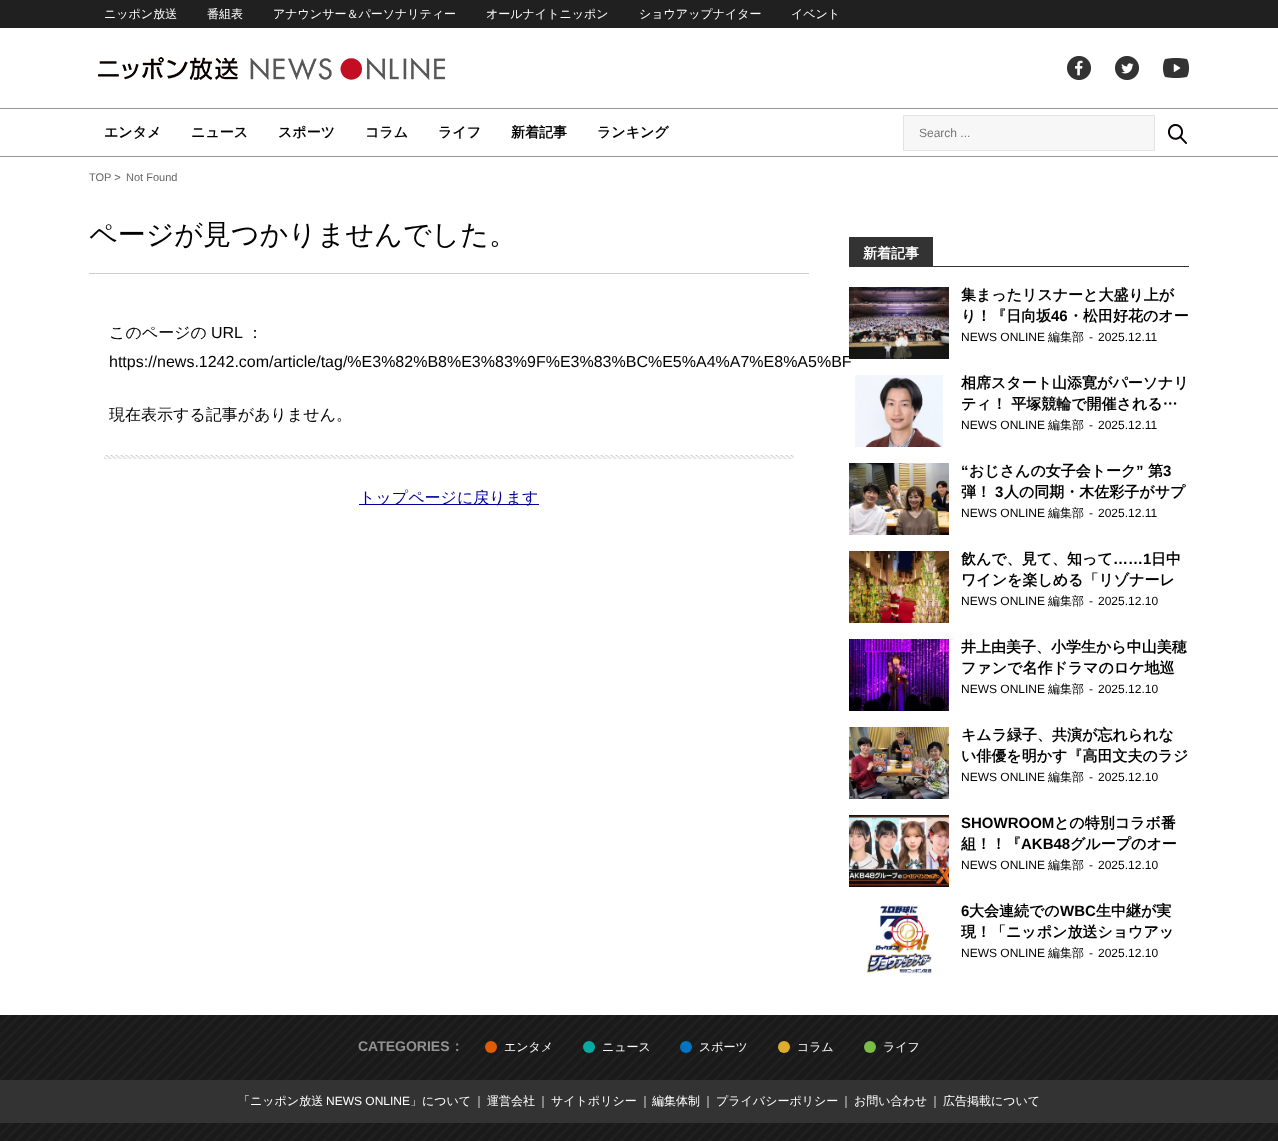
(async () => {
const canvas = document.querySelector("canvas")
canvas.width = 1278
canvas.height = 1141
const c = canvas.getContext("2d")
c.miterLimit = 4
c.fontKerning = "normal"
function T(s,x,y){c.fillText(s,x,y)}
function R(x,y,w,h){c.fillRect(x,y,w,h)}
async function I(src,x,y,w,h){const img=new Image();img.src=src;await img.decode();c.drawImage(img,x,y,w,h)}
c.fillStyle="#fff"
R(0,0,1278,1141)
c.fillStyle="#202020"
R(0,0,1278,28)
c.font="500 12px WenQuanYi Zen Hei"
c.fillStyle="#fff"
T("ニッポン放送",104,18)
T("番組表",207,18)
T("アナウンサー＆パーソナリティー",273,18)
T("オールナイトニッポン",486,18)
T("ショウアップナイター",639,18)
T("イベント",791,18)
await I("1.png",98,57,347,23)
await I("2.png",1067,56,24,24)
await I("3.png",1115,56,24,24)
await I("4.png",1163,58,26,20)
c.fillStyle="#999"
R(0,108,1278,1)
R(0,156,1278,1)
c.font="bold 14px WenQuanYi Zen Hei"
c.fillStyle="#000"
T("エンタメ",104,137)
T("ニュース",191,137)
T("スポーツ",278,137)
T("コラム",365,137)
T("ライフ",438,137)
T("新着記事",511,137)
T("ランキング",597,137)
c.fillStyle="#f7f7f7"
c.beginPath()
c.rect(903.5,115.5,251,35)
c.fill()
c.strokeStyle="#e3e3e3"
c.stroke()
c.font="12px Liberation Sans"
c.fillStyle="#757575"
T("Search ...",919,137)
await I("5.png",1168,124,19,20)
c.font="11px Liberation Sans"
c.fillStyle="#666"
T("TOP >",89,181)
T("Not Found",126,181)
c.fillStyle="#ccc"
R(89,273,720,1)
c.font="500 28px WenQuanYi Zen Hei"
c.fillStyle="#000"
T("ページが見つかりませんでした。",89,244)
c.font="500 16px WenQuanYi Zen Hei"
T("このページの",109,338)
c.font="16px Liberation Sans"
T("URL",211,338)
c.font="500 16px WenQuanYi Zen Hei"
T("：",247,338)
c.font="16px Liberation Sans"
T("https://news.1242.com/article/tag/%E3%82%B8%E3%83%9F%E3%83%BC%E5%A4%A7%E8%A5%BF",109,367)
c.font="500 16px WenQuanYi Zen Hei"
T("現在表示する記事がありません。",109,420)
await I("6.png",104,455,690,4)
c.fillStyle="#009"
R(359,504,180,1)
T("トップページに戻ります",359,503)
c.fillStyle="#333"
R(849,266,340,1)
R(849,237,84,29)
c.font="bold 14px WenQuanYi Zen Hei"
c.fillStyle="#fff"
T("新着記事",863,258)
await I("7.png",849,287,100,72)
c.font="bold 15px WenQuanYi Zen Hei"
c.fillStyle="#000"
T("集まったリスナーと大盛り上が",961,300)
T("り！『日向坂",961,321)
c.font="bold 15px Liberation Sans"
T("46",1051,321)
c.font="bold 15px WenQuanYi Zen Hei"
T("・松田好花のオー",1068,321)
c.font="12px Liberation Sans"
T("NEWS ONLINE",961,341)
c.font="500 12px WenQuanYi Zen Hei"
T("編集部",1048,341)
c.font="12px Liberation Sans"
T("-",1089,341)
T("2025.12.11",1098,341)
await I("8.png",855,375,88,72)
c.font="bold 15px WenQuanYi Zen Hei"
T("相席スタート山添寛がパーソナリ",961,388)
T("ティ！ 平塚競輪で開催される…",961,409)
c.font="12px Liberation Sans"
T("NEWS ONLINE",961,429)
c.font="500 12px WenQuanYi Zen Hei"
T("編集部",1048,429)
c.font="12px Liberation Sans"
T("-",1089,429)
T("2025.12.11",1098,429)
await I("9.png",849,463,100,72)
c.font="bold 15px Liberation Sans"
T("“",961,476)
c.font="bold 15px WenQuanYi Zen Hei"
T("おじさんの女子会トーク",969,476)
c.font="bold 15px Liberation Sans"
T("”",1136,476)
c.font="bold 15px WenQuanYi Zen Hei"
T("第",1148,476)
c.font="bold 15px Liberation Sans"
T("3",1163,476)
c.font="bold 15px WenQuanYi Zen Hei"
T("弾！",961,497)
c.font="bold 15px Liberation Sans"
T("3",995,497)
c.font="bold 15px WenQuanYi Zen Hei"
T("人の同期・木佐彩子がサプ",1004,497)
c.font="12px Liberation Sans"
T("NEWS ONLINE",961,517)
c.font="500 12px WenQuanYi Zen Hei"
T("編集部",1048,517)
c.font="12px Liberation Sans"
T("-",1089,517)
T("2025.12.11",1098,517)
await I("10.png",849,551,100,72)
c.font="bold 15px WenQuanYi Zen Hei"
T("飲んで、見て、知って",961,564)
c.font="bold 15px Liberation Sans"
T("……1",1113,564)
c.font="bold 15px WenQuanYi Zen Hei"
T("日中",1151,564)
T("ワインを楽しめる「リゾナーレ",961,585)
c.font="12px Liberation Sans"
T("NEWS ONLINE",961,605)
c.font="500 12px WenQuanYi Zen Hei"
T("編集部",1048,605)
c.font="12px Liberation Sans"
T("-",1089,605)
T("2025.12.10",1098,605)
await I("11.png",849,639,100,72)
c.font="bold 15px WenQuanYi Zen Hei"
T("井上由美子、小学生から中山美穂",961,652)
T("ファンで名作ドラマのロケ地巡",961,673)
c.font="12px Liberation Sans"
T("NEWS ONLINE",961,693)
c.font="500 12px WenQuanYi Zen Hei"
T("編集部",1048,693)
c.font="12px Liberation Sans"
T("-",1089,693)
T("2025.12.10",1098,693)
await I("12.png",849,727,100,72)
c.font="bold 15px WenQuanYi Zen Hei"
T("キムラ緑子、共演が忘れられな",961,740)
T("い俳優を明かす『高田文夫のラジ",961,761)
c.font="12px Liberation Sans"
T("NEWS ONLINE",961,781)
c.font="500 12px WenQuanYi Zen Hei"
T("編集部",1048,781)
c.font="12px Liberation Sans"
T("-",1089,781)
T("2025.12.10",1098,781)
await I("13.png",849,815,100,72)
c.font="bold 15px Liberation Sans"
T("SHOWROOM",961,828)
c.font="bold 15px WenQuanYi Zen Hei"
T("との特別コラボ番",1054,828)
T("組！！『",961,849)
c.font="bold 15px Liberation Sans"
T("AKB48",1021,849)
c.font="bold 15px WenQuanYi Zen Hei"
T("グループのオー",1070,849)
c.font="12px Liberation Sans"
T("NEWS ONLINE",961,869)
c.font="500 12px WenQuanYi Zen Hei"
T("編集部",1048,869)
c.font="12px Liberation Sans"
T("-",1089,869)
T("2025.12.10",1098,869)
await I("14.png",866,905,66,69)
c.font="bold 15px Liberation Sans"
T("6",961,916)
c.font="bold 15px WenQuanYi Zen Hei"
T("大会連続での",969,916)
c.font="bold 15px Liberation Sans"
T("WBC",1060,916)
c.font="bold 15px WenQuanYi Zen Hei"
T("生中継が実",1096,916)
T("現！「ニッポン放送ショウアッ",961,937)
c.font="12px Liberation Sans"
T("NEWS ONLINE",961,957)
c.font="500 12px WenQuanYi Zen Hei"
T("編集部",1048,957)
c.font="12px Liberation Sans"
T("-",1089,957)
T("2025.12.10",1098,957)
await I("15.png",0,1015,1278,126)
c.font="bold 14px Liberation Sans"
c.fillStyle="#929292"
T("CATEGORIES",358,1051)
c.font="bold 14px WenQuanYi Zen Hei"
T("：",450,1051)
c.fillStyle="#e15c03"
c.beginPath()
c.arc(491,1047,6,0,7)
c.fill()
c.font="500 12px WenQuanYi Zen Hei"
c.fillStyle="#fff"
T("エンタメ",504,1051)
c.fillStyle="#06aba1"
c.beginPath()
c.arc(589,1047,6,0,7)
c.fill()
c.fillStyle="#fff"
T("ニュース",602,1051)
c.fillStyle="#0073c3"
c.beginPath()
c.arc(686,1047,6,0,7)
c.fill()
c.fillStyle="#fff"
T("スポーツ",699,1051)
c.fillStyle="#dead29"
c.beginPath()
c.arc(784,1047,6,0,7)
c.fill()
c.fillStyle="#fff"
T("コラム",797,1051)
c.fillStyle="#7bbe45"
c.beginPath()
c.arc(870,1047,6,0,7)
c.fill()
c.fillStyle="#fff"
T("ライフ",883,1051)
c.fillStyle="#333"
R(0,1080,1278,43)
c.fillStyle="#fff"
T("「ニッポン放送",238,1105)
c.font="12px Liberation Sans"
T("NEWS ONLINE",326,1105)
c.font="500 12px WenQuanYi Zen Hei"
T("」について",410,1105)
c.fillStyle="#eee"
T("｜",473,1105)
c.fillStyle="#fff"
T("運営会社",487,1105)
c.fillStyle="#eee"
T("｜",537,1105)
c.fillStyle="#fff"
T("サイトポリシー",551,1105)
c.fillStyle="#eee"
T("｜",639,1105)
c.fillStyle="#fff"
T("編集体制",652,1105)
c.fillStyle="#eee"
T("｜",702,1105)
c.fillStyle="#fff"
T("プライバシーポリシー",716,1105)
c.fillStyle="#eee"
T("｜",840,1105)
c.fillStyle="#fff"
T("お問い合わせ",854,1105)
c.fillStyle="#eee"
T("｜",929,1105)
c.fillStyle="#fff"
T("広告掲載について",943,1105)
})()
